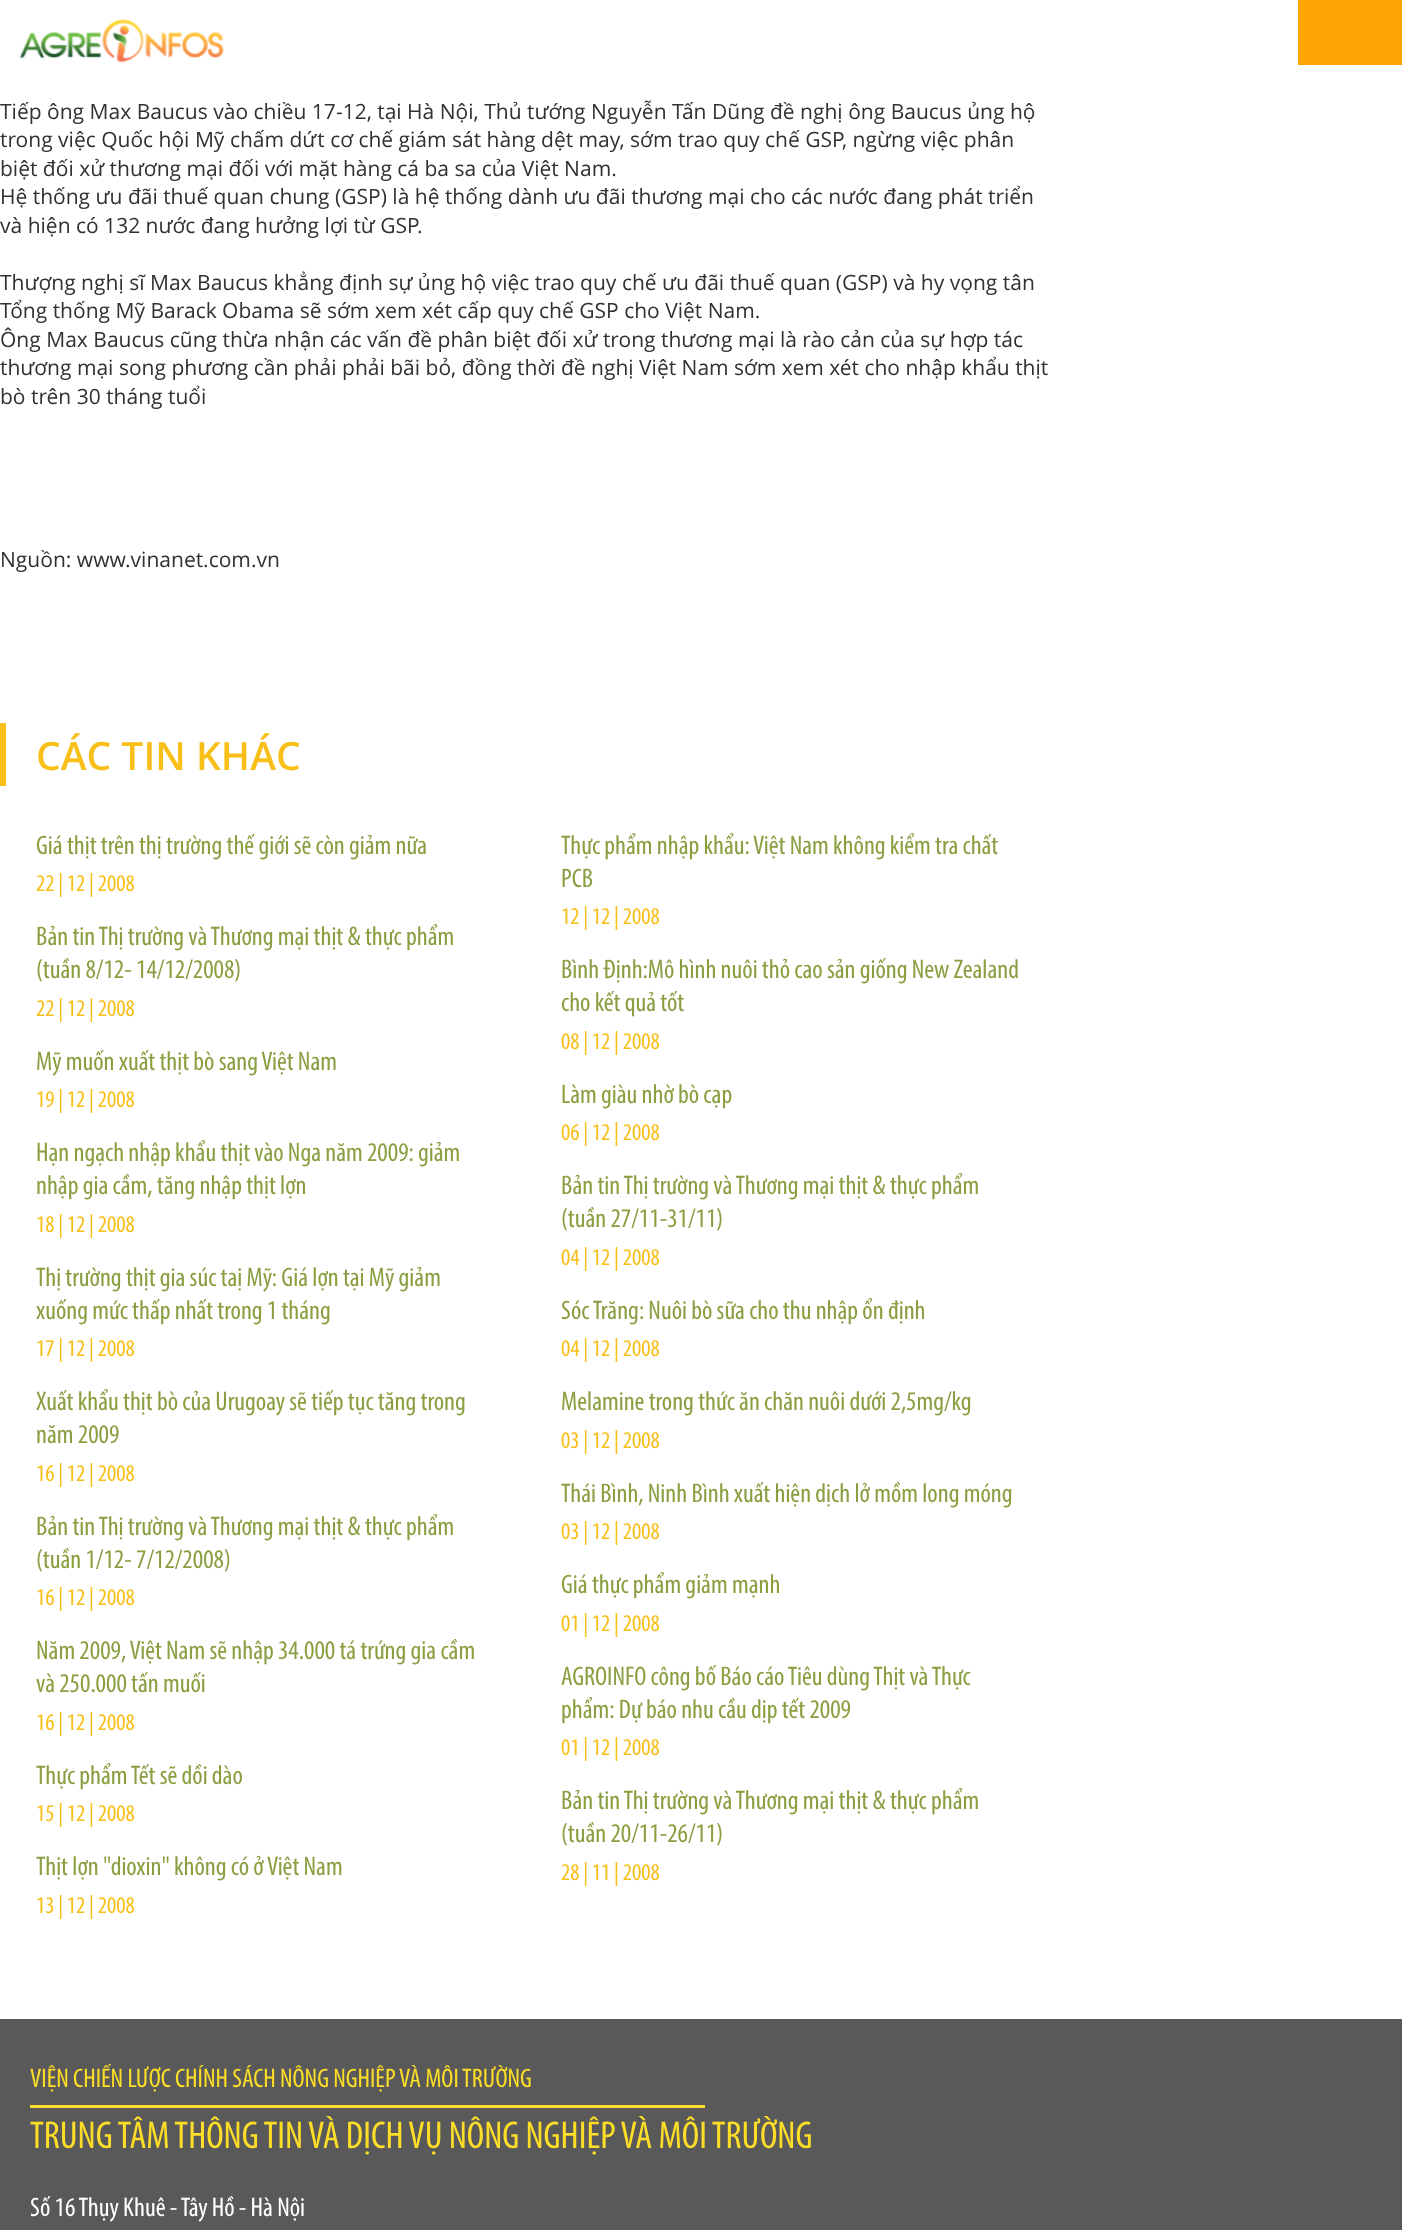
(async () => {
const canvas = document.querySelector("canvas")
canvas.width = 1402
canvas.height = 2230
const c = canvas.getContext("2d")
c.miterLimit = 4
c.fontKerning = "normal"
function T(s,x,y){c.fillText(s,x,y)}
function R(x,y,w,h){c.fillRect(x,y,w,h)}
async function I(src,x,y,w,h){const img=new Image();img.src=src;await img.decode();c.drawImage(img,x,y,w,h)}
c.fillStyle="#fff"
R(0,0,1402,2230)
await I("1.png",19,19,205,44)
c.fillStyle="#ffa405"
R(1298,0,104,65)
c.font="21px Open Sans"
c.fillStyle="#313131"
T("Tiếp ông Max Baucus vào chiều 17-12, tại Hà Nội, Thủ tướng Nguyễn Tấn Dũng đề nghị ông Baucus ủng hộ",0,119)
T("trong việc Quốc hội Mỹ chấm dứt cơ chế giám sát hàng dệt may, sớm trao quy chế GSP, ngừng việc phân",0,147)
T("biệt đối xử thương mại đối với mặt hàng cá ba sa của Việt Nam.",0,176)
T("Hệ thống ưu đãi thuế quan chung (GSP) là hệ thống dành ưu đãi thương mại cho các nước đang phát triển",0,204)
T("và hiện có 132 nước đang hưởng lợi từ GSP.",0,233)
T("Thượng nghị sĩ Max Baucus khẳng định sự ủng hộ việc trao quy chế ưu đãi thuế quan (GSP) và hy vọng tân",0,290)
T("Tổng thống Mỹ Barack Obama sẽ sớm xem xét cấp quy chế GSP cho Việt Nam.",0,318)
T("Ông Max Baucus cũng thừa nhận các vấn đề phân biệt đối xử trong thương mại là rào cản của sự hợp tác",0,347)
T("thương mại song phương cần phải phải bãi bỏ, đồng thời đề nghị Việt Nam sớm xem xét cho nhập khẩu thịt",0,375)
T("bò trên 30 tháng tuổi",0,404)
T("Nguồn: www.vinanet.com.vn",0,567)
c.fillStyle="#f9bf19"
R(0,723,6,63)
c.font="600 39px Open Sans"
T("CÁC TIN KHÁC",36,770)
c.font="27px Myriad"
c.fillStyle="#8a9f41"
T("Giá thịt trên thị trường thế giới sẽ còn giảm nữa",36,854)
c.font="24px Myriad"
c.fillStyle="#f9bf19"
T("22 | 12 | 2008",36,891)
c.font="27px Myriad"
c.fillStyle="#8a9f41"
T("Bản tin Thị trường và Thương mại thịt & thực phẩm",36,945)
T("(tuần 8/12- 14/12/2008)",36,978)
c.font="24px Myriad"
c.fillStyle="#f9bf19"
T("22 | 12 | 2008",36,1016)
c.font="27px Myriad"
c.fillStyle="#8a9f41"
T("Mỹ muốn xuất thịt bò sang Việt Nam",36,1070)
c.font="24px Myriad"
c.fillStyle="#f9bf19"
T("19 | 12 | 2008",36,1107)
c.font="27px Myriad"
c.fillStyle="#8a9f41"
T("Hạn ngạch nhập khẩu thịt vào Nga năm 2009: giảm",36,1161)
T("nhập gia cầm, tăng nhập thịt lợn",36,1194)
c.font="24px Myriad"
c.fillStyle="#f9bf19"
T("18 | 12 | 2008",36,1232)
c.font="27px Myriad"
c.fillStyle="#8a9f41"
T("Thị trường thịt gia súc taị Mỹ: Giá lợn tại Mỹ giảm",36,1286)
T("xuống mức thấp nhất trong 1 tháng",36,1319)
c.font="24px Myriad"
c.fillStyle="#f9bf19"
T("17 | 12 | 2008",36,1356)
c.font="27px Myriad"
c.fillStyle="#8a9f41"
T("Xuất khẩu thịt bò của Urugoay sẽ tiếp tục tăng trong",36,1410)
T("năm 2009",36,1443)
c.font="24px Myriad"
c.fillStyle="#f9bf19"
T("16 | 12 | 2008",36,1481)
c.font="27px Myriad"
c.fillStyle="#8a9f41"
T("Bản tin Thị trường và Thương mại thịt & thực phẩm",36,1535)
T("(tuần 1/12- 7/12/2008)",36,1568)
c.font="24px Myriad"
c.fillStyle="#f9bf19"
T("16 | 12 | 2008",36,1605)
c.font="27px Myriad"
c.fillStyle="#8a9f41"
T("Năm 2009, Việt Nam sẽ nhập 34.000 tá trứng gia cầm",36,1659)
T("và 250.000 tấn muối",36,1692)
c.font="24px Myriad"
c.fillStyle="#f9bf19"
T("16 | 12 | 2008",36,1730)
c.font="27px Myriad"
c.fillStyle="#8a9f41"
T("Thực phẩm Tết sẽ dồi dào",36,1784)
c.font="24px Myriad"
c.fillStyle="#f9bf19"
T("15 | 12 | 2008",36,1821)
c.font="27px Myriad"
c.fillStyle="#8a9f41"
T("Thịt lợn \"dioxin\" không có ở Việt Nam",36,1875)
c.font="24px Myriad"
c.fillStyle="#f9bf19"
T("13 | 12 | 2008",36,1913)
c.font="27px Myriad"
c.fillStyle="#8a9f41"
T("Thực phẩm nhập khẩu: Việt Nam không kiểm tra chất",561,854)
T("PCB",561,887)
c.font="24px Myriad"
c.fillStyle="#f9bf19"
T("12 | 12 | 2008",561,924)
c.font="27px Myriad"
c.fillStyle="#8a9f41"
T("Bình Định:Mô hình nuôi thỏ cao sản giống New Zealand",561,978)
T("cho kết quả tốt",561,1011)
c.font="24px Myriad"
c.fillStyle="#f9bf19"
T("08 | 12 | 2008",561,1049)
c.font="27px Myriad"
c.fillStyle="#8a9f41"
T("Làm giàu nhờ bò cạp",561,1103)
c.font="24px Myriad"
c.fillStyle="#f9bf19"
T("06 | 12 | 2008",561,1140)
c.font="27px Myriad"
c.fillStyle="#8a9f41"
T("Bản tin Thị trường và Thương mại thịt & thực phẩm",561,1194)
T("(tuần 27/11-31/11)",561,1227)
c.font="24px Myriad"
c.fillStyle="#f9bf19"
T("04 | 12 | 2008",561,1265)
c.font="27px Myriad"
c.fillStyle="#8a9f41"
T("Sóc Trăng: Nuôi bò sữa cho thu nhập ổn định",561,1319)
c.font="24px Myriad"
c.fillStyle="#f9bf19"
T("04 | 12 | 2008",561,1356)
c.font="27px Myriad"
c.fillStyle="#8a9f41"
T("Melamine trong thức ăn chăn nuôi dưới 2,5mg/kg",561,1410)
c.font="24px Myriad"
c.fillStyle="#f9bf19"
T("03 | 12 | 2008",561,1448)
c.font="27px Myriad"
c.fillStyle="#8a9f41"
T("Thái Bình, Ninh Bình xuất hiện dịch lở mồm long móng",561,1502)
c.font="24px Myriad"
c.fillStyle="#f9bf19"
T("03 | 12 | 2008",561,1539)
c.font="27px Myriad"
c.fillStyle="#8a9f41"
T("Giá thực phẩm giảm mạnh",561,1593)
c.font="24px Myriad"
c.fillStyle="#f9bf19"
T("01 | 12 | 2008",561,1631)
c.font="27px Myriad"
c.fillStyle="#8a9f41"
T("AGROINFO công bố Báo cáo Tiêu dùng Thịt và Thực",561,1685)
T("phẩm: Dự báo nhu cầu dịp tết 2009",561,1718)
c.font="24px Myriad"
c.fillStyle="#f9bf19"
T("01 | 12 | 2008",561,1755)
c.font="27px Myriad"
c.fillStyle="#8a9f41"
T("Bản tin Thị trường và Thương mại thịt & thực phẩm",561,1809)
T("(tuần 20/11-26/11)",561,1842)
c.font="24px Myriad"
c.fillStyle="#f9bf19"
T("28 | 11 | 2008",561,1880)
c.fillStyle="#595959"
R(0,2019,1402,211)
c.save()
c.beginPath()
c.rect(0,2064,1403,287)
c.clip()
c.font="27px Myriad"
c.fillStyle="#fcdd27"
T("VIỆN CHIẾN LƯỢC CHÍNH SÁCH NÔNG NGHIỆP VÀ MÔI TRƯỜNG",30,2087)
c.restore()
c.fillStyle="#fcdd27"
R(30,2105,675,3)
c.font="39px Myriad"
T("TRUNG TÂM THÔNG TIN VÀ DỊCH VỤ NÔNG NGHIỆP VÀ MÔI TRƯỜNG",30,2148)
c.font="27px Myriad"
c.fillStyle="#fff"
T("Số 16 Thụy Khuê - Tây Hồ - Hà Nội",30,2216)
})()
